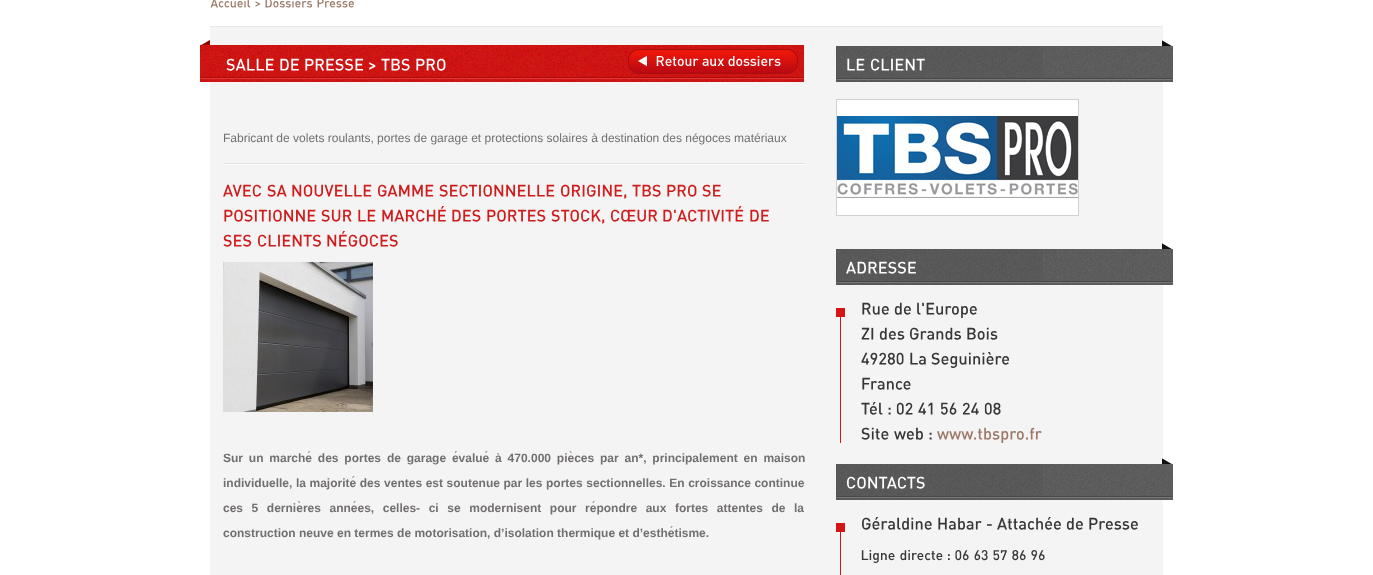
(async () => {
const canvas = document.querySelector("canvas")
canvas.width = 1373
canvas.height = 575
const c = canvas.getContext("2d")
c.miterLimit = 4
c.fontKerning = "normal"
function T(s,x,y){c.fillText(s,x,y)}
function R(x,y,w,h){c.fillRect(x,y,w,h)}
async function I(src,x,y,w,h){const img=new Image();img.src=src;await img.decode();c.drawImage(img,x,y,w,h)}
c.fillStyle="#fff"
R(0,0,1373,575)
await I("1.png",210,0,41,8)
await I("2.png",255,1,5,6)
await I("3.png",265,0,48,8)
await I("4.png",317,0,37,8)
c.fillStyle="#f5f4f4"
R(210,27,953,548)
c.fillStyle="#ebe8e8"
R(210,26,953,1)
await I("5.png",200,40,604,42)
await I("6.png",226,58,48,13)
await I("7.png",280,58,19,13)
await I("8.png",305,58,58,13)
await I("9.png",369,62,7,8)
await I("10.png",381,58,29,13)
await I("11.png",416,58,30,13)
await I("12.png",628,49,170,25)
c.font="12px Liberation Sans"
c.fillStyle="#726f6f"
T("Fabricant de volets roulants, portes de garage et protections solaires à destination des négoces matériaux",223,142)
await I("13.png",223,163,582,2)
await I("14.png",223,184,39,13)
await I("15.png",267,184,20,13)
await I("16.png",292,184,80,13)
await I("17.png",378,184,56,13)
await I("18.png",439,184,116,13)
await I("19.png",561,184,66,15)
await I("20.png",632,184,29,13)
await I("21.png",667,184,30,13)
await I("22.png",702,184,19,13)
await I("23.png",224,209,92,13)
await I("24.png",321,209,31,13)
await I("25.png",358,209,18,13)
await I("26.png",382,206,64,16)
await I("27.png",452,209,29,13)
await I("28.png",487,209,59,13)
await I("29.png",551,209,54,15)
await I("30.png",611,209,47,13)
await I("31.png",663,206,81,16)
await I("32.png",750,209,19,13)
await I("33.png",223,234,29,13)
await I("34.png",258,234,63,13)
await I("35.png",327,231,71,16)
await I("36.png",223,262,150,150)
c.wordSpacing="2.5px"
c.font="bold 12px Liberation Sans"
T("Sur un marché des portes de garage évalué à 470.000 pièces par an*, principalement en maison",223,462)
c.wordSpacing="0.25px"
T("individuelle, la majorité des ventes est soutenue par les portes sectionnelles. En croissance continue",223,487)
c.wordSpacing="5.25px"
T("ces 5 dernières années, celles- ci se modernisent pour répondre aux fortes attentes de la",223,512)
c.wordSpacing="0px"
T("construction neuve en termes de motorisation, d’isolation thermique et d’esthétisme.",223,537)
await I("37.png",836,40,337,42)
await I("38.png",847,58,18,13)
await I("39.png",871,58,54,13)
c.strokeStyle="#d5d0d0"
c.strokeRect(836.5,99.5,242,116)
await I("40.png",837,100,241,115)
await I("37.png",836,243,337,42)
await I("41.png",846,261,70,13)
await I("42.png",836,308,9,135)
await I("43.png",862,302,27,13)
await I("44.png",894,302,17,13)
await I("45.png",917,302,60,16)
await I("46.png",861,327,13,13)
await I("47.png",879,327,26,13)
await I("48.png",910,327,51,13)
await I("49.png",967,327,31,13)
await I("50.png",861,352,43,13)
await I("51.png",910,352,16,13)
await I("52.png",931,352,79,16)
await I("53.png",862,377,49,13)
await I("54.png",861,402,22,13)
await I("55.png",888,407,3,8)
await I("56.png",896,402,17,13)
await I("57.png",918,402,15,13)
await I("58.png",941,402,16,13)
await I("59.png",962,402,17,13)
await I("60.png",984,402,17,13)
await I("61.png",861,427,28,13)
await I("62.png",894,427,29,13)
await I("55.png",929,432,3,8)
await I("63.png",937,427,105,16)
await I("37.png",836,458,337,42)
await I("64.png",847,476,78,13)
await I("65.png",836,523,9,52)
await I("66.png",862,517,70,13)
await I("67.png",938,517,44,13)
await I("68.png",987,524,5,2)
await I("69.png",997,517,64,13)
await I("44.png",1066,517,17,13)
await I("70.png",1089,517,49,13)
await I("71.png",861,550,34,13)
await I("72.png",900,550,43,11)
await I("73.png",948,554,2,6)
await I("74.png",955,550,14,11)
await I("75.png",974,550,14,11)
await I("76.png",993,550,14,11)
await I("77.png",1012,550,14,11)
await I("78.png",1031,550,14,11)
})()
